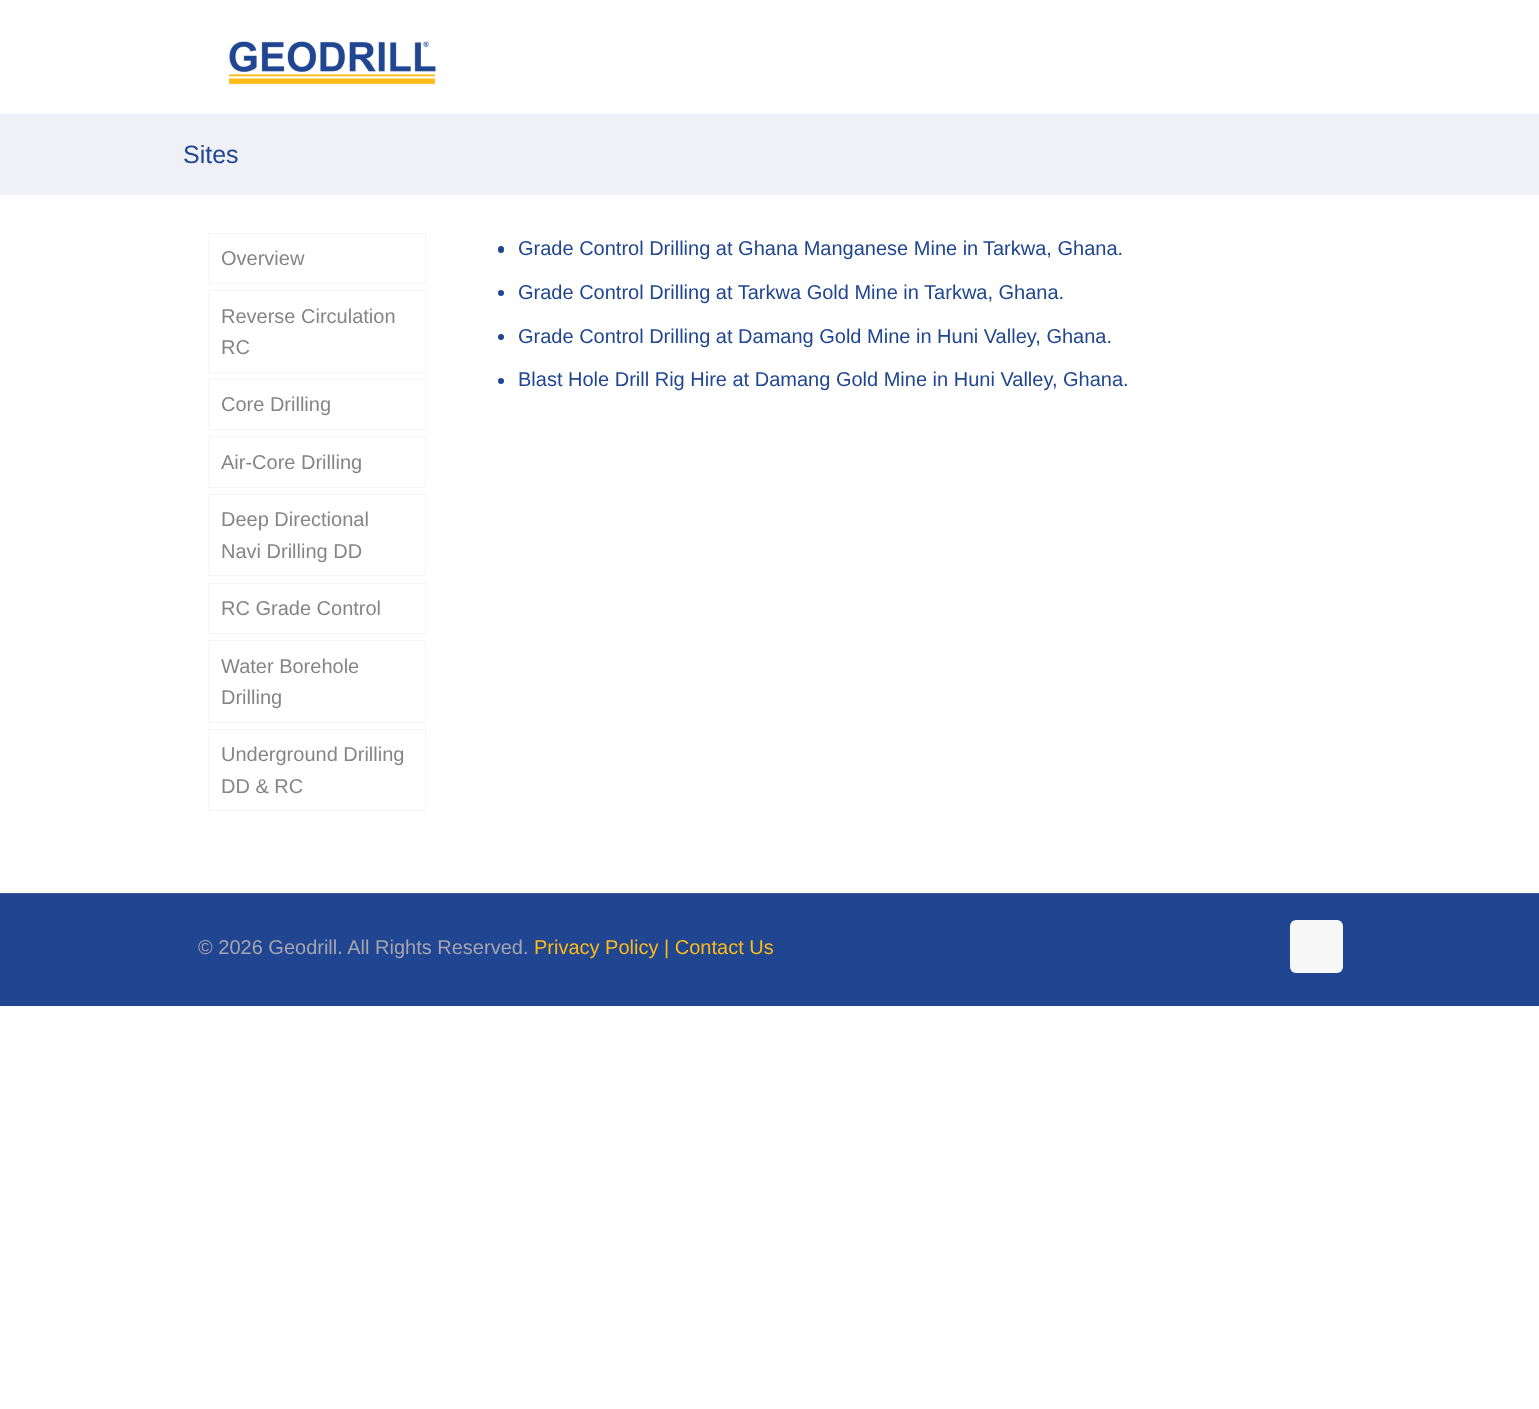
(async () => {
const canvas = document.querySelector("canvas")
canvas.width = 1539
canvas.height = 1409
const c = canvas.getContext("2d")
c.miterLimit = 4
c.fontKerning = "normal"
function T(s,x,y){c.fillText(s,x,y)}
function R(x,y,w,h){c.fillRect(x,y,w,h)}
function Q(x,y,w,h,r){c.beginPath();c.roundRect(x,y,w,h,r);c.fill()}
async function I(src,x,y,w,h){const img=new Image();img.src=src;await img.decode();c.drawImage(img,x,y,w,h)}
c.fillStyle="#fff"
R(0,0,1539,1409)
await I("1.png",228,41,208,44)
c.fillStyle="#eff1f6"
R(0,114,1539,81)
c.font="25px Liberation Sans"
c.fillStyle="#204691"
T("Sites",183,163)
c.strokeStyle="#f5f5f5"
c.strokeRect(208.5,233.5,217,50)
c.font="20px Liberation Sans"
c.fillStyle="#858585"
T("Overview",221,265)
c.strokeRect(208.5,290.5,217,82)
T("Reverse Circulation",221,323)
T("RC",221,354)
c.strokeRect(208.5,379.5,217,50)
T("Core Drilling",221,411)
c.strokeRect(208.5,436.5,217,51)
T("Air-Core Drilling",221,469)
c.strokeRect(208.5,494.5,217,81)
T("Deep Directional",221,526)
T("Navi Drilling DD",221,558)
c.strokeRect(208.5,583.5,217,50)
T("RC Grade Control",221,615)
c.strokeRect(208.5,640.5,217,82)
T("Water Borehole",221,673)
T("Drilling",221,704)
c.strokeRect(208.5,729.5,217,81)
T("Underground Drilling",221,761)
T("DD & RC",221,793)
c.fillStyle="#204691"
Q(498,246,6,7,3)
T("Grade Control Drilling at Ghana Manganese Mine in",518,255)
T("Tarkwa, Ghana.",983,255)
c.beginPath()
c.arc(501,293,3,0,7)
c.fill()
T("Grade Control Drilling at Tarkwa Gold Mine in Tarkwa, Ghana.",518,299)
c.beginPath()
c.arc(501,337,3,0,7)
c.fill()
T("Grade Control Drilling at Damang Gold Mine in Huni Valley, Ghana.",518,343)
c.beginPath()
c.arc(501,381,3,0,7)
c.fill()
T("Blast Hole Drill Rig Hire at Damang Gold Mine in Huni Valley, Ghana.",518,386)
R(0,894,1539,112)
c.fillStyle="#36599c"
R(0,893,1539,1)
c.fillStyle="#a6a4af"
T("© 2026 Geodrill. All Rights Reserved.",198,954)
c.fillStyle="#febb17"
T("Privacy Policy | Contact Us",534,954)
c.fillStyle="#f7f7f7"
Q(1290,920,53,53,6)
})()
